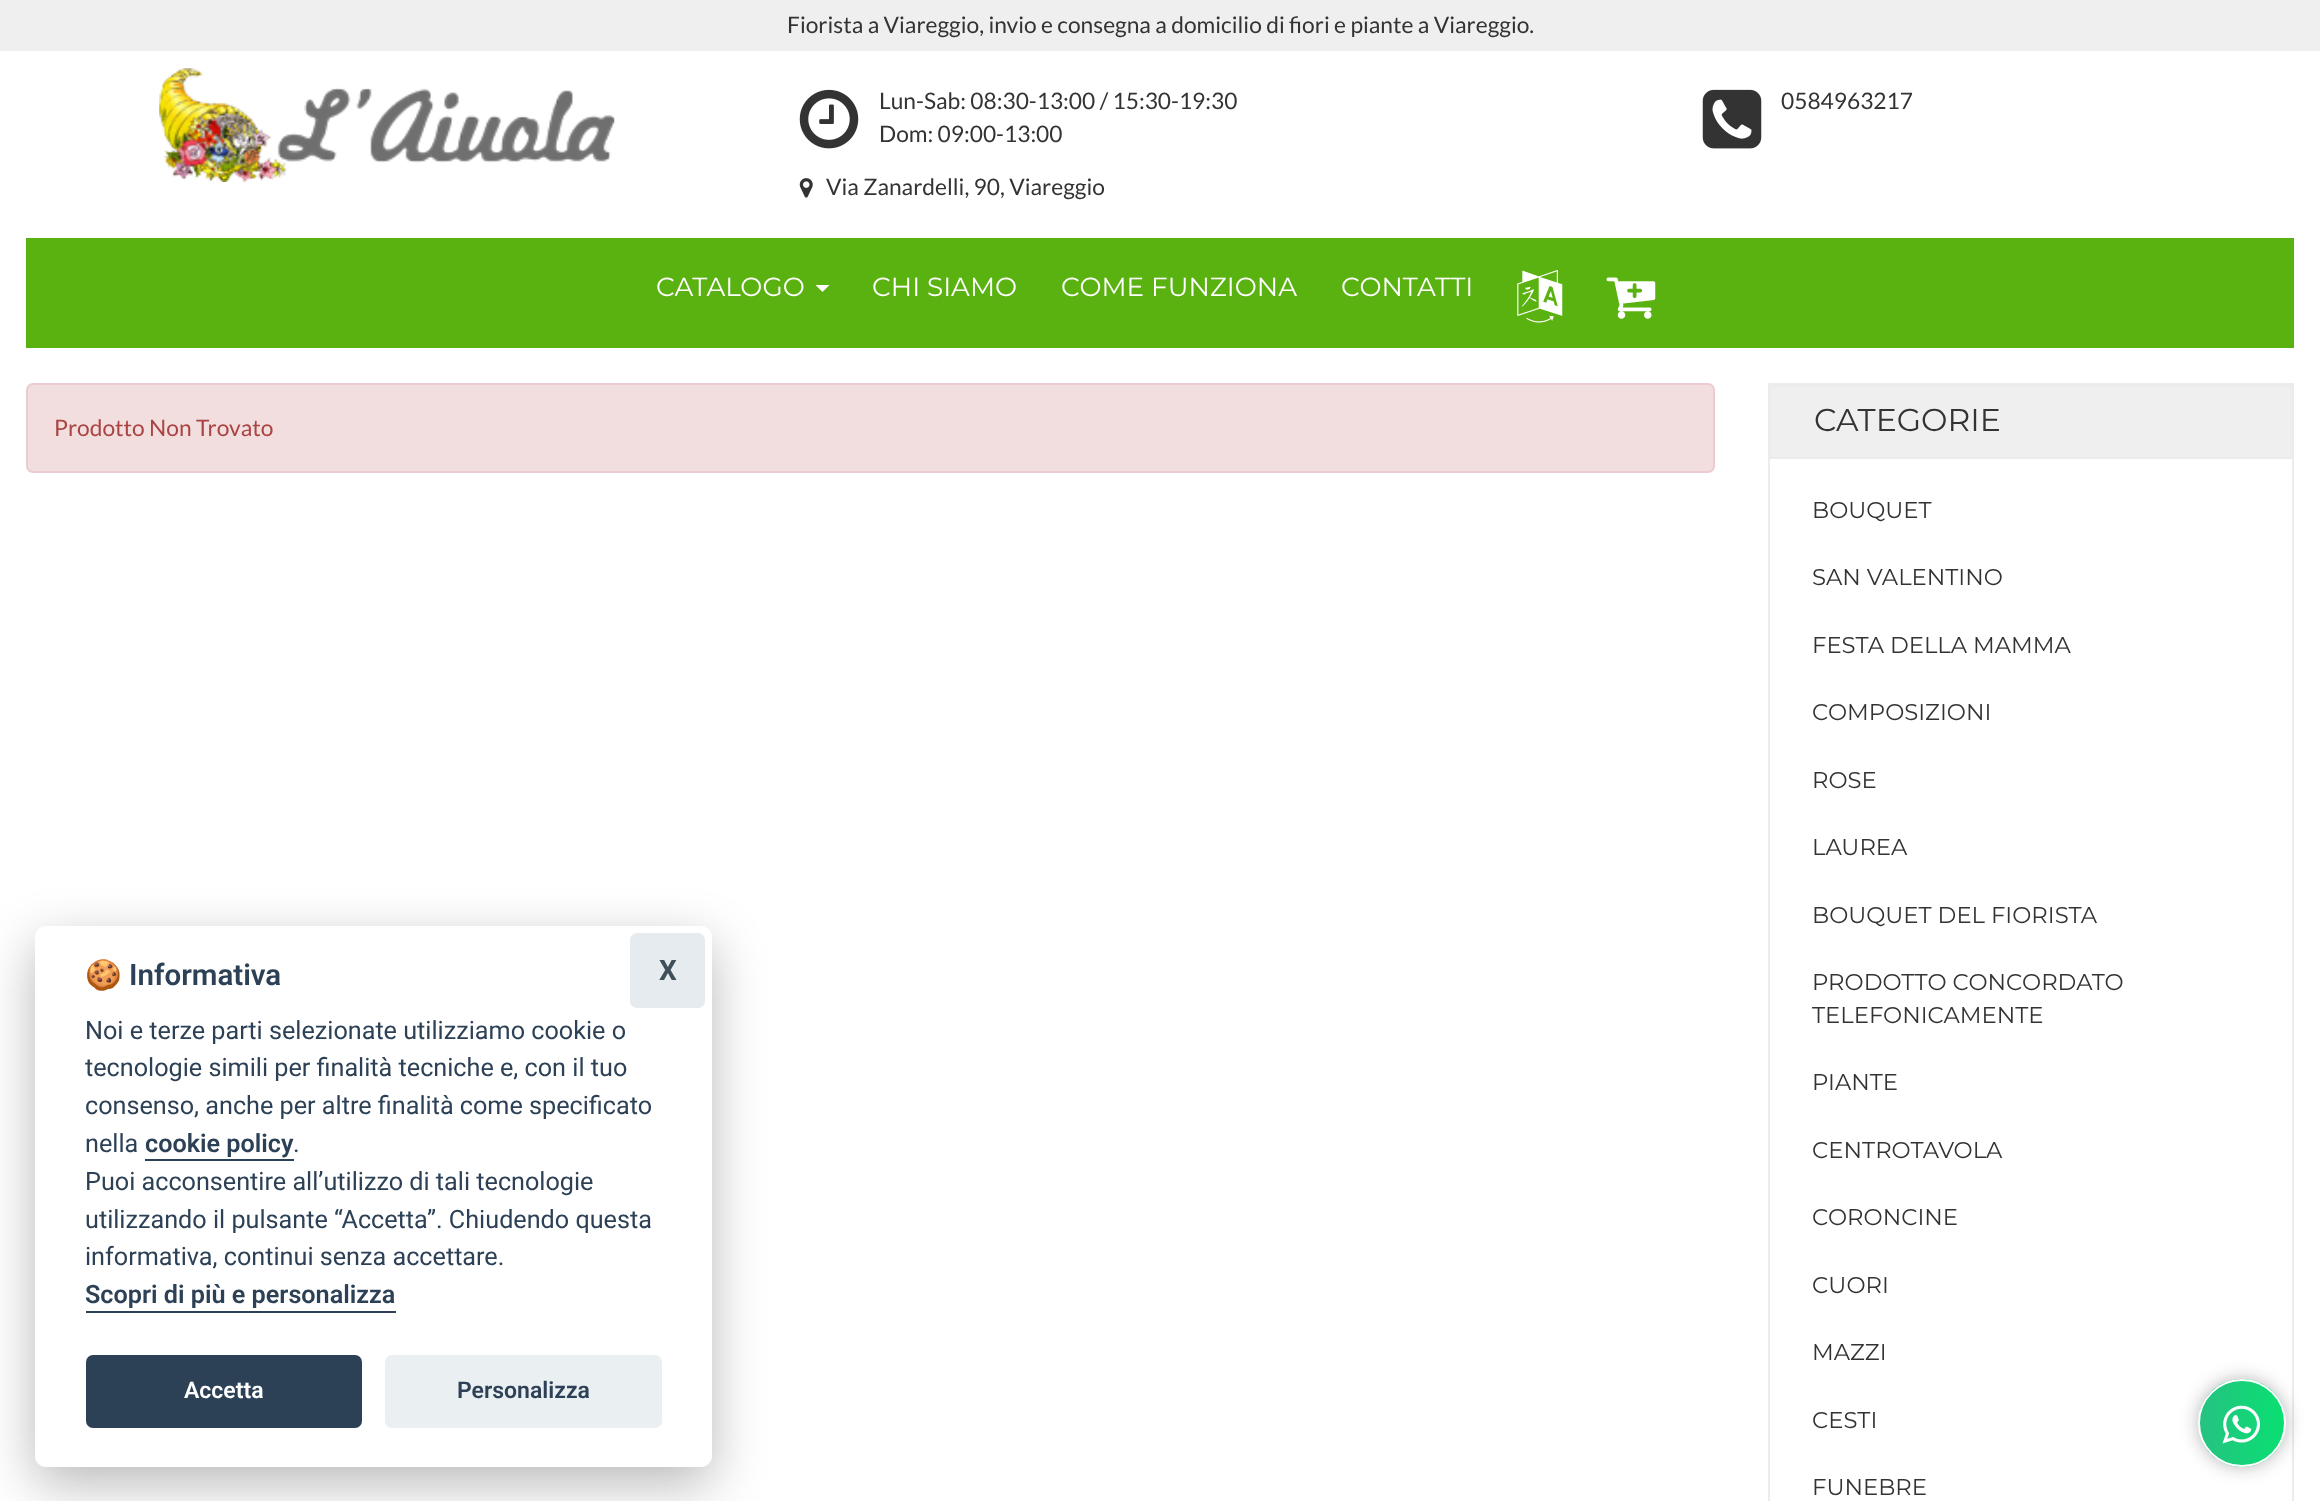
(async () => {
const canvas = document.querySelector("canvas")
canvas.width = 2320
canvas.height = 1501
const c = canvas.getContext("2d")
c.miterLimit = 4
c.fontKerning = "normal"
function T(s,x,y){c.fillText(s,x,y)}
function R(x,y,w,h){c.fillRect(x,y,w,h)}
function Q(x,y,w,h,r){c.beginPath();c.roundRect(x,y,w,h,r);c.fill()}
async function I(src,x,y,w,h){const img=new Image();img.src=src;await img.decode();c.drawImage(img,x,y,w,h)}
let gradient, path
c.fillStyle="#fff"
R(0,0,2320,1501)
c.fillStyle="#efefef"
R(0,0,2320,51)
c.font="22.75px Lato"
c.fillStyle="#333"
T("Fiorista a Viareggio, invio e consegna a domicilio di fiori e piante a Viareggio.",787,33)
await I("1.png",159,68,456,114)
await I("2.png",799,89,60,60)
T("Lun-Sab: 08:30-13:00 / 15:30-19:30",879,109)
T("Dom: 09:00-13:00",879,142)
await I("3.png",1702,89,60,60)
T("0584963217",1781,109)
await I("4.png",799,178,14,20)
T("Via Zanardelli, 90, Viareggio",826,195)
c.fillStyle="#59b210"
R(26,238,2268,110)
c.font="100 26.25px Montserrat"
c.fillStyle="#fff"
T("CATALOGO",656,296)
path = new Path2D("M815.5 285h14l-7 7z")
c.fill(path)
T("CHI SIAMO",872,296)
T("COME FUNZIONA",1061,296)
T("CONTATTI",1341,296)
await I("5.png",1517,270,46,53)
await I("6.png",1606,277,50,42)
c.fillStyle="#f2dede"
c.beginPath()
c.roundRect(27,384,1687,88,6)
c.fill()
c.strokeStyle="#ebccd1"
c.lineWidth=2
c.stroke()
c.font="22.75px Lato"
c.fillStyle="#a94442"
T("Prodotto Non Trovato",54,436)
c.strokeStyle="#ececec"
c.strokeRect(1769,384,524,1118)
c.fillStyle="#efefef"
c.beginPath()
c.rect(1770,386,522,72)
c.fill()
c.stroke()
c.font="100 31.5px Montserrat"
c.fillStyle="#333"
T("CATEGORIE",1814,431)
c.font="100 22.75px Montserrat"
T("BOUQUET",1812,518)
T("SAN VALENTINO",1812,585)
T("FESTA DELLA MAMMA",1812,653)
T("COMPOSIZIONI",1812,720)
T("ROSE",1812,788)
T("LAUREA",1812,855)
T("BOUQUET DEL FIORISTA",1812,923)
T("PRODOTTO CONCORDATO",1812,990)
T("TELEFONICAMENTE",1812,1023)
T("PIANTE",1812,1090)
T("CENTROTAVOLA",1812,1158)
T("CORONCINE",1812,1225)
T("CUORI",1812,1293)
T("MAZZI",1812,1360)
T("CESTI",1812,1428)
T("FUNEBRE",1812,1495)
c.fillStyle="#02020347"
c.filter="blur(26px)"
c.beginPath()
c.roundRect(35,943,677,541,11)
c.fill()
c.filter="none"
c.fillStyle="#fff"
Q(35,926,677,541,11)
c.font="bold 29.5px Noto Color Emoji"
c.fillStyle="#2d4156"
T("🍪",85,985)
c.font="600 29.5px Roboto"
T("Informativa",129,985)
c.font="25.2px Roboto"
T("Noi e terze parti selezionate utilizziamo cookie o",85,1039)
T("tecnologie simili per finalità tecniche e, con il tuo",85,1076)
T("consenso, anche per altre finalità come specificato",85,1114)
T("nella",85,1152)
c.font="600 25.2px Roboto"
T("cookie policy",145,1152)
R(145,1159,149,2)
c.font="25.2px Roboto"
T(".",293,1152)
T("Puoi acconsentire all’utilizzo di tali tecnologie",85,1190)
T("utilizzando il pulsante “Accetta”. Chiudendo questa",85,1228)
T("informativa, continui senza accettare.",85,1265)
c.font="600 25.2px Roboto"
T("Scopri di più e personalizza",85,1303)
R(86,1311,310,2)
Q(86,1355,276,73,7)
c.font="600 23px Roboto"
c.fillStyle="#fff"
T("Accetta",184,1398)
c.fillStyle="#eaeff2"
Q(385,1355,277,73,7)
c.fillStyle="#2d4156"
T("Personalizza",457,1398)
c.fillStyle="#e5ebef"
Q(630,933,75,75,7)
c.font="bold 28px Roboto"
c.fillStyle="#40505a"
T("X",659,980)
c.fillStyle="#0c0c0c4d"
c.filter="blur(9px)"
c.beginPath()
c.roundRect(2198,1379,88,88,44)
c.fill()
c.filter="none"
c.save()
c.beginPath()
c.roundRect(2198,1379,88,88,44)
c.clip()
gradient = c.createLinearGradient(2200,1423,2284,1423)
gradient.addColorStop(0,"#26c281")
gradient.addColorStop(1,"#09e072")
c.fillStyle = gradient
R(2200,1379,84,88)
c.restore()
c.beginPath()
c.arc(2242,1423,43,0,7)
c.strokeStyle="#fff"
c.stroke()
await I("7.png",2222,1405,38,39)
})()
